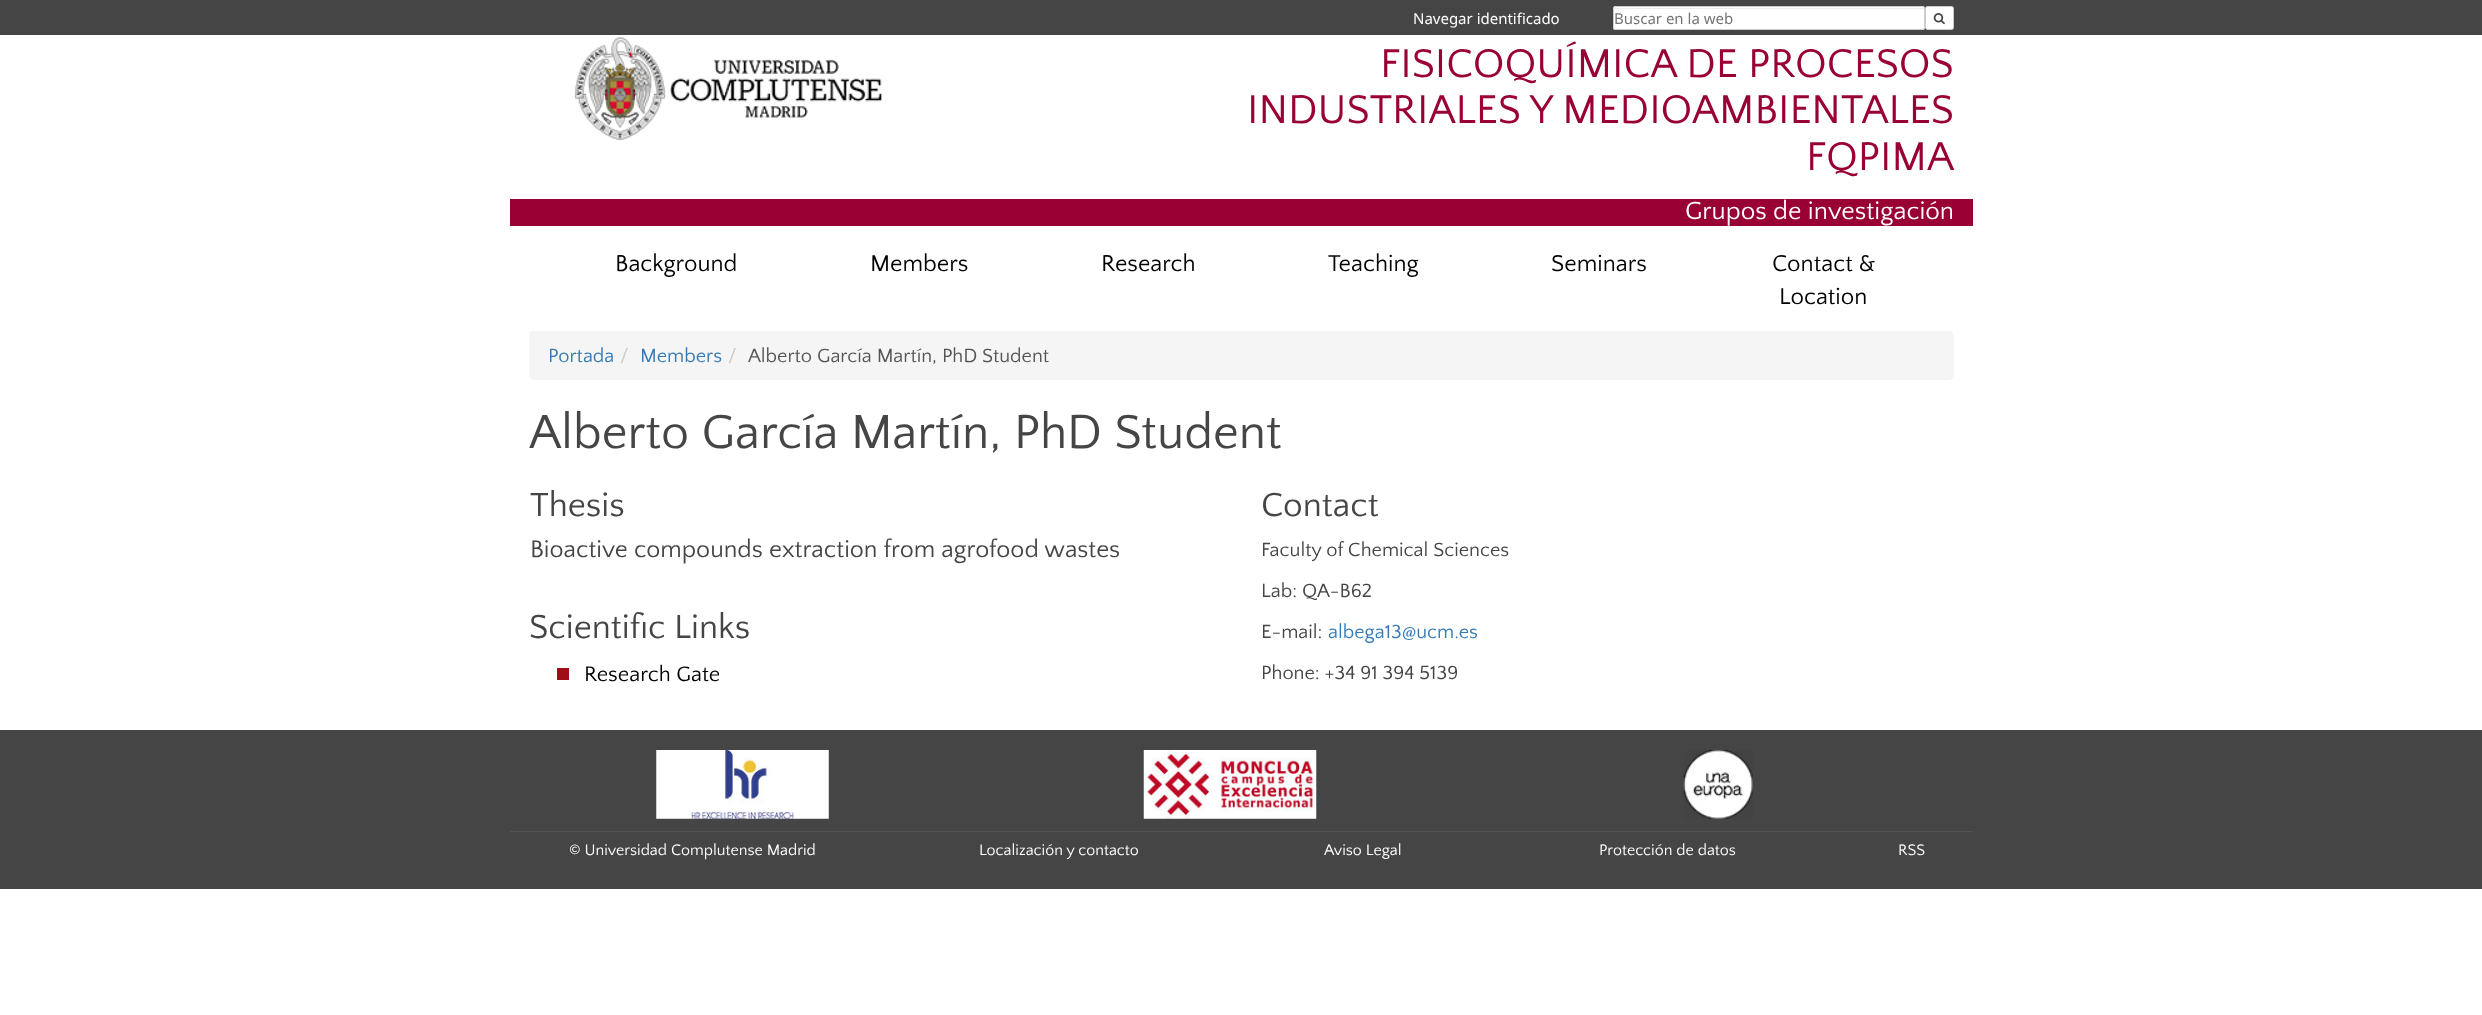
(async () => {
const canvas = document.querySelector("canvas")
canvas.width = 2482
canvas.height = 1015
const c = canvas.getContext("2d")
c.miterLimit = 4
c.fontKerning = "normal"
function T(s,x,y){c.fillText(s,x,y)}
function R(x,y,w,h){c.fillRect(x,y,w,h)}
function Q(x,y,w,h,r){c.beginPath();c.roundRect(x,y,w,h,r);c.fill()}
async function I(src,x,y,w,h){const img=new Image();img.src=src;await img.decode();c.drawImage(img,x,y,w,h)}
let path
c.fillStyle="#fff"
R(0,0,2482,1015)
c.fillStyle="#454545"
R(0,0,2482,35)
c.font="15px Noto Sans"
c.fillStyle="#fff"
T("Navegar identificado",1413,24)
Q(1613,6,312,24,2.5)
c.fillStyle="#ececec"
path = new Path2D("M1615 9h307c1 0 2 0 2 1c0-1 0-2-1-2h-308h-1v2c0-1 0-1 1-1z")
c.fill(path)
c.beginPath()
c.roundRect(1613.5,6.5,311,23,2)
c.strokeStyle="#ccc"
c.stroke()
c.fillStyle="#757575"
T("Buscar en la web",1614,24)
c.fillStyle="#fff"
c.beginPath()
c.roundRect(1925.5,6.5,28,23,2)
c.fill()
c.stroke()
await I("1.png",1933,13,12,12)
await I("2.png",574,37,308,103)
c.font="42px Quattrocento Sans"
c.fillStyle="#903"
T("FISICOQUÍMICA DE PROCESOS",1380,77)
T("INDUSTRIALES Y MEDIOAMBIENTALES",1247,123)
T("FQPIMA",1806,170)
R(510,199,1463,27)
c.font="26px Quattrocento Sans"
c.fillStyle="#fff"
T("Grupos de investigación",1685,219)
c.font="24px Quattrocento Sans"
c.fillStyle="#000"
T("Background",615,271)
T("Members",870,271)
T("Research",1101,271)
T("Teaching",1328,271)
T("Seminars",1551,271)
T("Contact &",1772,271)
T("Location",1779,304)
c.fillStyle="#f5f5f5"
Q(529,331,1425,49,5)
c.font="20px Quattrocento Sans"
c.fillStyle="#337ab7"
T("Portada",548,362)
c.fillStyle="#ccc"
T("/",620,362)
c.fillStyle="#337ab7"
T("Members",640,362)
c.fillStyle="#ccc"
T("/",728,362)
c.fillStyle="#555354"
T("Alberto García Martín, PhD Student",748,362)
c.font="50px Quattrocento Sans"
c.fillStyle="#454545"
T("Alberto García Martín, PhD Student",529,448)
c.font="35px Quattrocento Sans"
T("Thesis",530,516)
c.font="25px Quattrocento Sans"
T("Bioactive compounds extraction from agrofood wastes",530,557)
c.font="35px Quattrocento Sans"
T("Scientific Links",529,638)
c.fillStyle="#a00d17"
R(557,668,12,12)
c.font="22px Quattrocento Sans"
c.fillStyle="#000"
T("Research Gate",584,681)
c.font="35px Quattrocento Sans"
c.fillStyle="#454545"
T("Contact",1261,516)
c.font="20px Quattrocento Sans"
T("Faculty of Chemical Sciences",1261,556)
T("Lab: QA-B62",1261,597)
T("E-mail:",1261,638)
c.fillStyle="#337ab7"
T("albega13@ucm.es",1328,638)
c.fillStyle="#454545"
T("Phone: +34 91 394 5139",1261,679)
R(0,730,2482,159)
await I("3.png",656,750,173,69)
await I("4.png",1143,750,174,69)
await I("5.png",1683,750,70,69)
c.fillStyle="#535353"
R(510,831,1463,1)
c.font="16px Quattrocento Sans"
c.fillStyle="#fff"
T("© Universidad Complutense Madrid",569,855)
T("Localización y contacto",979,855)
T("Aviso Legal",1324,855)
T("Protección de datos",1599,855)
T("RSS",1898,855)
})()
